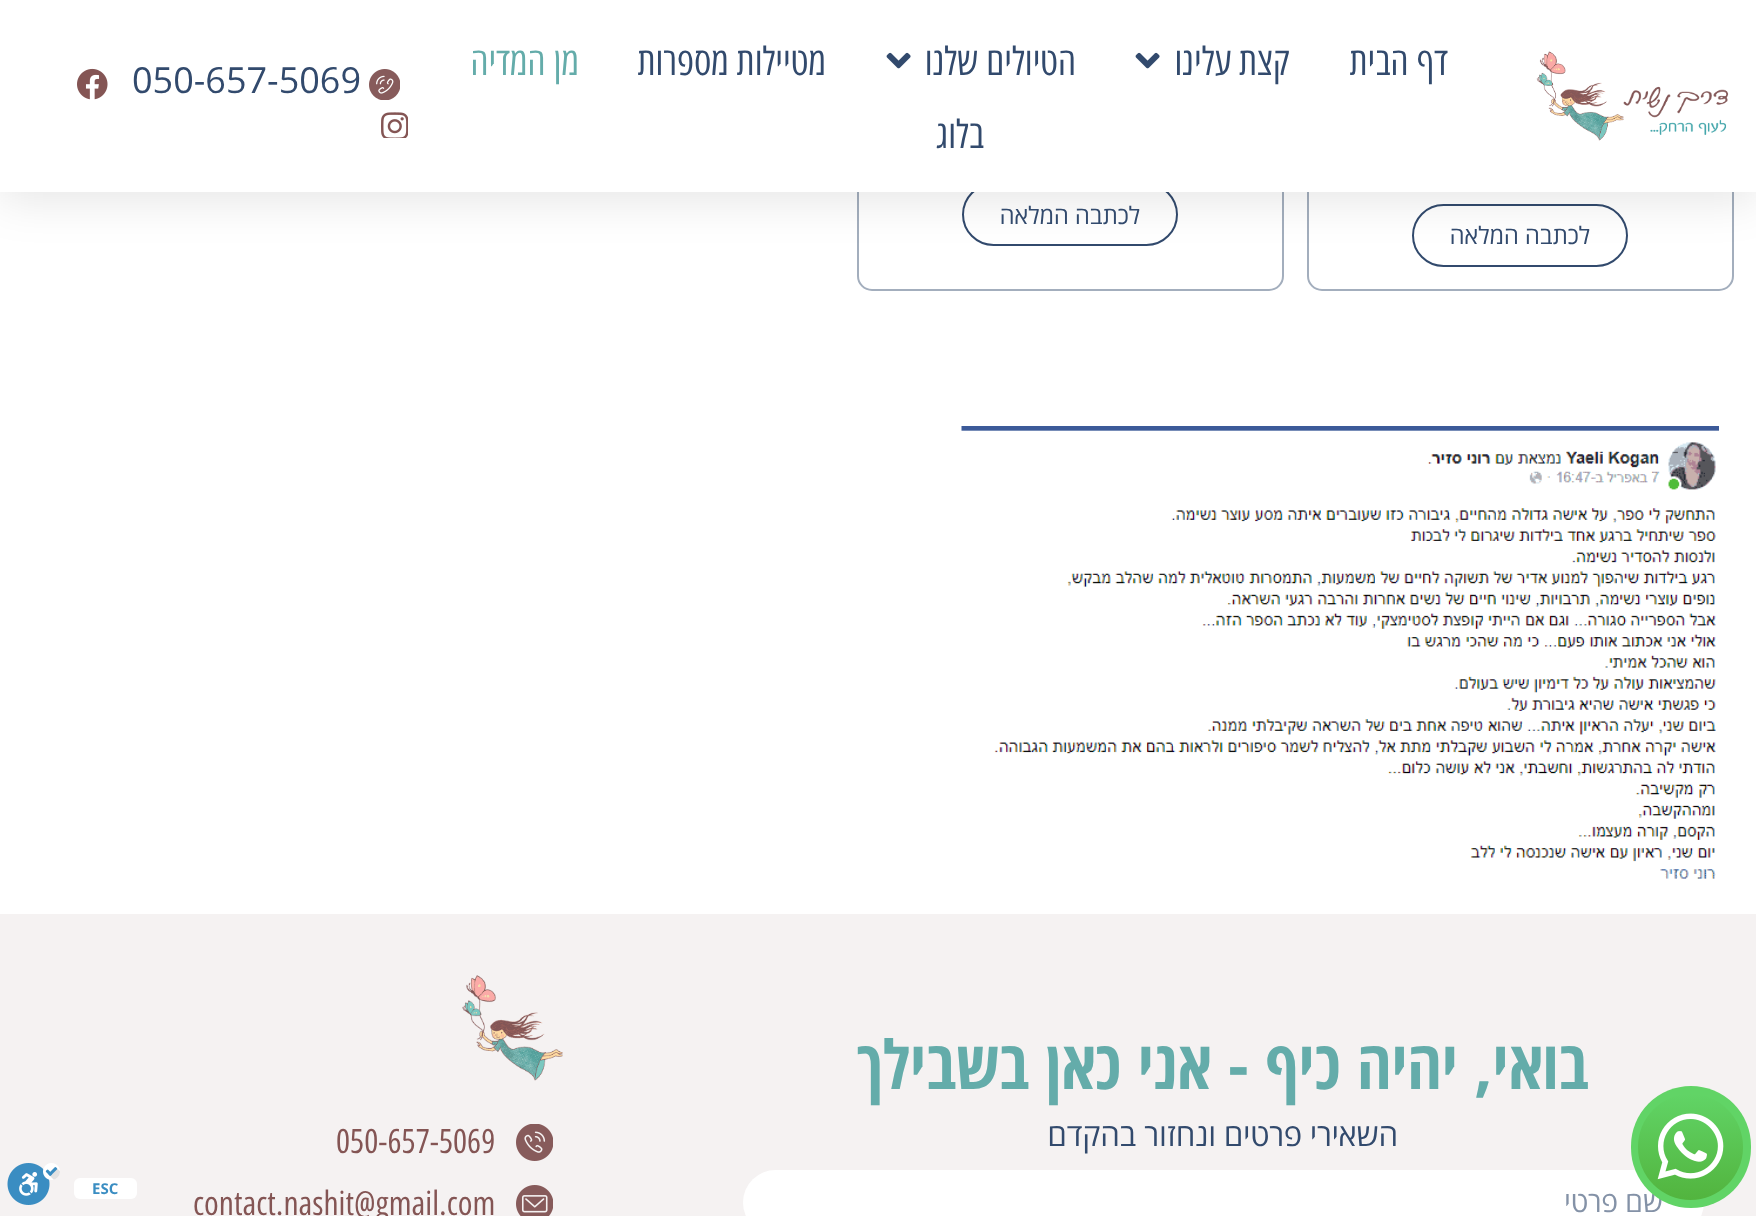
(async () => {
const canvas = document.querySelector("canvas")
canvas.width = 1756
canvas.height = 1216
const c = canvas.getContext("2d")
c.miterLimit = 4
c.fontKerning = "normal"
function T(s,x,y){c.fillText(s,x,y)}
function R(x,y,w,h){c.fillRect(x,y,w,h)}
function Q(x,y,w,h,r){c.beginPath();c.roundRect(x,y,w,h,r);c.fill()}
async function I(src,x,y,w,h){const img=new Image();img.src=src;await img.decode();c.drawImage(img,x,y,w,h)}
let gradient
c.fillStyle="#fff"
R(0,0,1756,1216)
c.beginPath()
c.roundRect(858,7,425,283,14)
c.strokeStyle="#a3aebd"
c.lineWidth=2
c.stroke()
c.beginPath()
c.roundRect(963,184,214,61,30.5)
c.strokeStyle="#324a6d"
c.stroke()
c.beginPath()
c.roundRect(1308,7,425,283,14)
c.strokeStyle="#a3aebd"
c.stroke()
c.beginPath()
c.roundRect(1413,205,214,61,30.5)
c.strokeStyle="#324a6d"
c.stroke()
c.fillStyle="#0000001a"
c.filter="blur(22.5px)"
c.beginPath()
c.rect(0,8,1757,192)
c.fill()
c.filter="none"
c.fillStyle="#fff"
R(0,0,1756,192)
await I("1.png",1536,51,193,90)
c.direction="rtl"
c.font="38.5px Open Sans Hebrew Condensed"
c.fillStyle="#324a6d"
T("דף הבית",1448,75)
T("קצת עלינו",1290,75)
await I("2.png",1135,52,25,17)
T("הטיולים שלנו",1076,75)
await I("2.png",886,52,25,17)
T("מטיילות מספרות",826,75)
c.fillStyle="#64acaa"
T("מן המדיה",579,75)
c.fillStyle="#324a6d"
T("בלוג",984,148)
await I("3.png",369,69,31,31)
c.direction="ltr"
c.font="36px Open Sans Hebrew"
T("050-657-5069",132,93)
await I("4.png",77,68,31,32)
await I("5.png",381,112,27,26)
c.direction="rtl"
c.font="24px Open Sans Hebrew"
T("לכתבה המלאה",1140,224)
T("לכתבה המלאה",1590,244)
await I("6.png",961,426,758,453)
c.fillStyle="#f5f2f2"
R(0,914,1756,302)
c.fillStyle="#fff"
Q(743,1170,961,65,32.5)
c.font="28.5px Open Sans Hebrew"
c.fillStyle="#8492a7"
T("*שם פרטי",1679,1212)
c.fillStyle="#61d466"
Q(1631,1086,120,122,60)
gradient = c.createLinearGradient(1691,1094,1691,1200)
gradient.addColorStop(0,"#61d466")
gradient.addColorStop(1,"#52b43e")
c.fillStyle = gradient
Q(1638,1094,105,106,52.5)
await I("7.png",1657,1113,67,67)
c.font="bold 67.25px Open Sans Hebrew Condensed"
c.fillStyle="#64acaa"
T("בואי, יהיה כיף - אני כאן בשבילך",1589,1089)
c.font="31.25px Open Sans Hebrew"
c.fillStyle="#324a6d"
T("השאירי פרטים ונחזור בהקדם",1398,1146)
await I("8.png",462,975,101,106)
await I("9.png",516,1124,37,37)
c.direction="ltr"
c.font="33.5px Open Sans Hebrew Condensed"
c.fillStyle="#845554"
T("050-657-5069",336,1153)
await I("10.png",516,1185,37,31)
T("contact.nashit@gmail.com",193,1215)
c.fillStyle="#fff"
Q(74,1178,63,21,6)
c.font="bold 15px Open Sans Hebrew"
c.fillStyle="#3a8dc2"
T("ESC",92,1194)
await I("11.png",7,1163,53,42)
})()
